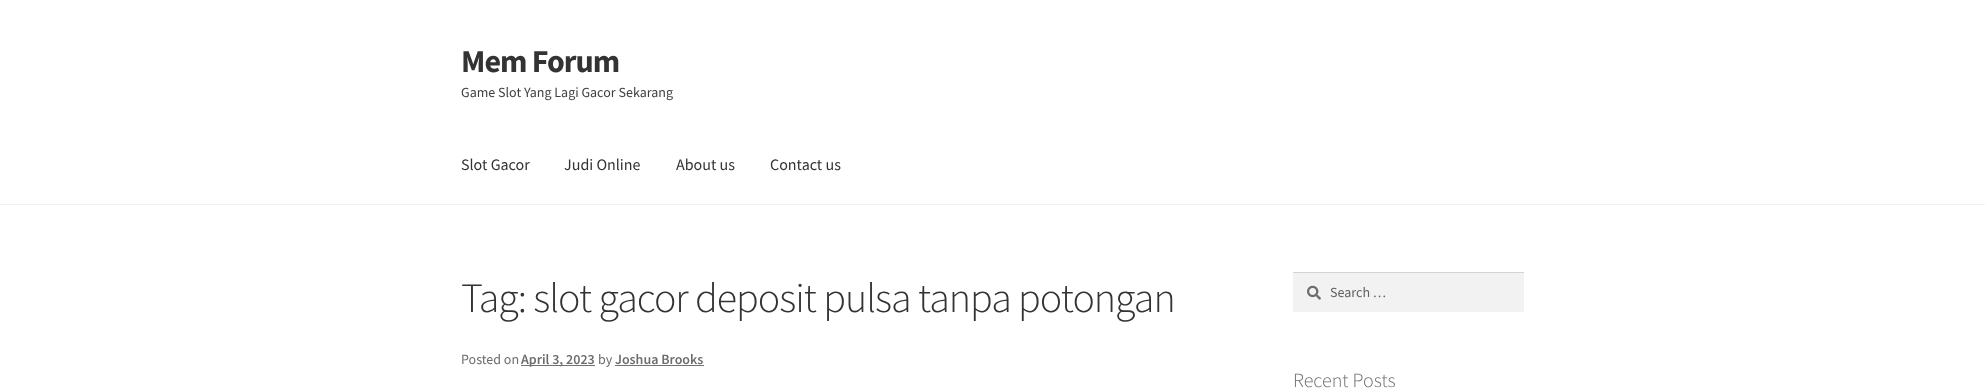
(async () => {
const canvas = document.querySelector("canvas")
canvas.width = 1985
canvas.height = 391
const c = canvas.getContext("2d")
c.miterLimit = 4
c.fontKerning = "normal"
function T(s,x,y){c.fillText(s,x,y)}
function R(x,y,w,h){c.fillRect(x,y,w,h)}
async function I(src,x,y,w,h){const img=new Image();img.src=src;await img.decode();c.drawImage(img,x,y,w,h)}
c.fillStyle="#fff"
R(0,0,1985,391)
c.fillStyle="#f0f0f0"
R(0,204,1985,1)
c.letterSpacing="-1px"
c.font="bold 32px Source Sans Pro"
c.fillStyle="#333"
T("Mem Forum",461,72)
c.letterSpacing="0px"
c.font="14px Source Sans Pro"
c.fillStyle="#404040"
T("Game Slot Yang Lagi Gacor Sekarang",461,97)
c.font="16px Source Sans Pro"
c.fillStyle="#333"
T("Slot Gacor",461,170)
T("Judi Online",564,170)
T("About us",676,170)
T("Contact us",770,170)
c.letterSpacing="-1px"
c.font="300 41.9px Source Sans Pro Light"
T("Tag: slot gacor deposit pulsa tanpa potongan",461,312)
c.letterSpacing="0px"
c.font="14px Source Sans Pro"
c.fillStyle="#6d6d6d"
T("Posted on",461,364)
c.fillStyle="#727272"
R(521,365,74,1)
c.font="600 14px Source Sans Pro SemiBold"
c.fillStyle="#6d6d6d"
T("April 3, 2023",521,364)
c.font="14px Source Sans Pro"
T("by",598,364)
c.fillStyle="#727272"
R(615,365,89,1)
c.font="600 14px Source Sans Pro SemiBold"
c.fillStyle="#6d6d6d"
T("Joshua Brooks",615,364)
c.fillStyle="#f2f2f2"
R(1293,273,231,39)
await I("1.png",1307,285,14,15)
c.fillStyle="#d4d4d4"
R(1293,272,231,1)
c.font="14px Source Sans Pro"
c.fillStyle="#616161"
T("Search …",1330,297)
c.font="300 20px Source Sans Pro Light"
c.fillStyle="#6d6d6d"
T("Recent Posts",1293,387)
})()
